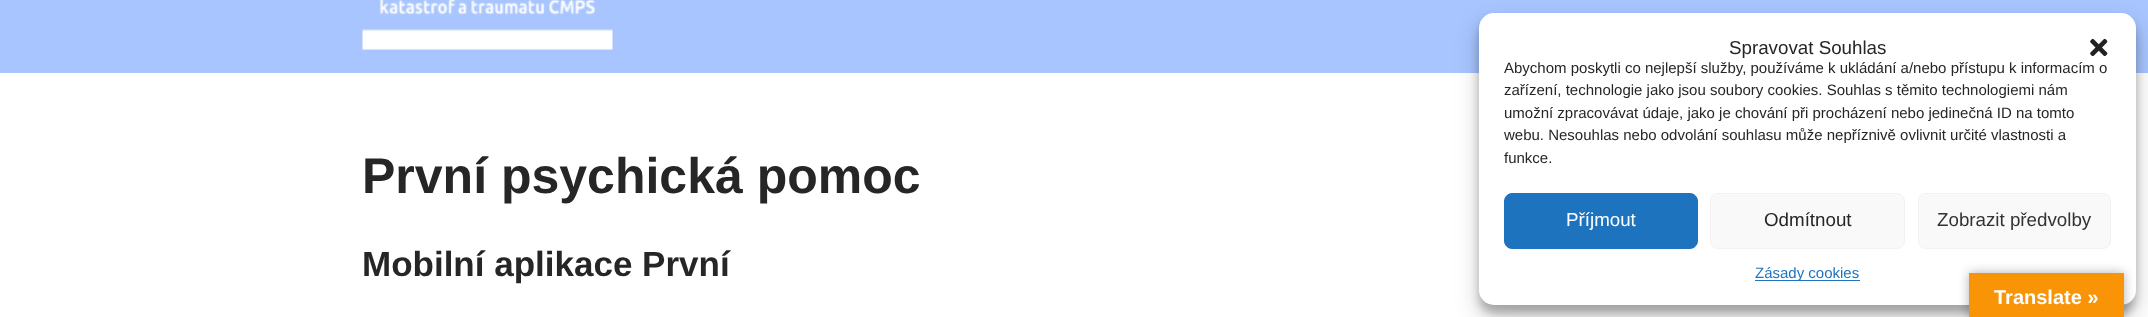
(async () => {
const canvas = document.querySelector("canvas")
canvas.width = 2148
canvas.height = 317
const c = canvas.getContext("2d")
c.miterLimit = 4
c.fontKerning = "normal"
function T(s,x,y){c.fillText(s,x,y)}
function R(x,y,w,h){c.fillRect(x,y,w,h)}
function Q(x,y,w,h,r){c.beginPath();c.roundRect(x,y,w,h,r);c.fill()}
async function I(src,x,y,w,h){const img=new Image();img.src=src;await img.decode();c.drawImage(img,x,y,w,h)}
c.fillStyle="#fff"
R(0,0,2148,317)
c.fillStyle="#a8c5ff"
R(0,0,2148,73)
await I("1.png",362,0,251,50)
c.font="bold 50px Liberation Sans"
c.fillStyle="#272626"
T("První psychická pomoc",362,193)
c.font="bold 35px Liberation Sans"
T("Mobilní aplikace První",362,276)
c.fillStyle="#0000003b"
c.filter="blur(4px)"
c.beginPath()
c.roundRect(1479,20,657,293,15)
c.fill()
c.filter="none"
c.fillStyle="#00000030"
c.filter="blur(12.5px)"
c.beginPath()
c.roundRect(1479,25,657,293,15)
c.fill()
c.filter="none"
c.fillStyle="#fff"
Q(1479,13,657,292,15)
c.font="18.75px Liberation Sans"
c.fillStyle="#272626"
T("Spravovat Souhlas",1729,54)
await I("2.png",2090,38,18,19)
c.font="15px Liberation Sans"
T("Abychom poskytli co nejlepší služby, používáme k ukládání a/nebo přístupu k informacím o",1504,73)
T("zařízení, technologie jako jsou soubory cookies. Souhlas s těmito technologiemi nám",1504,95)
T("umožní zpracovávat údaje, jako je chování při procházení nebo jedinečná ID na tomto",1504,118)
T("webu. Nesouhlas nebo odvolání souhlasu může nepříznivě ovlivnit určité vlastnosti a",1504,140)
T("funkce.",1504,163)
c.fillStyle="#1e73be"
c.beginPath()
c.roundRect(1504.5,193.5,193,55,7.5)
c.fill()
c.strokeStyle="#1e73be"
c.stroke()
c.font="18.75px Liberation Sans"
c.fillStyle="#fff"
T("Příjmout",1566,226)
c.fillStyle="#f9f9f9"
c.beginPath()
c.roundRect(1710.5,193.5,194,55,7.5)
c.fill()
c.strokeStyle="#f2f2f2"
c.stroke()
c.fillStyle="#272626"
T("Odmítnout",1764,226)
c.fillStyle="#f9f9f9"
c.beginPath()
c.roundRect(1918.5,193.5,192,55,7.5)
c.fill()
c.stroke()
c.fillStyle="#333"
T("Zobrazit předvolby",1937,226)
c.fillStyle="#1e73be"
R(1755,280,105,1)
c.font="15px Liberation Sans"
T("Zásady cookies",1755,278)
c.fillStyle="#0000004d"
c.filter="blur(5.5px)"
c.beginPath()
c.rect(1969,273,155,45)
c.fill()
c.filter="none"
c.fillStyle="#f89406"
R(1969,273,155,44)
c.font="bold 20px Liberation Sans"
c.fillStyle="#fff"
T("Translate »",1994,304)
})()
